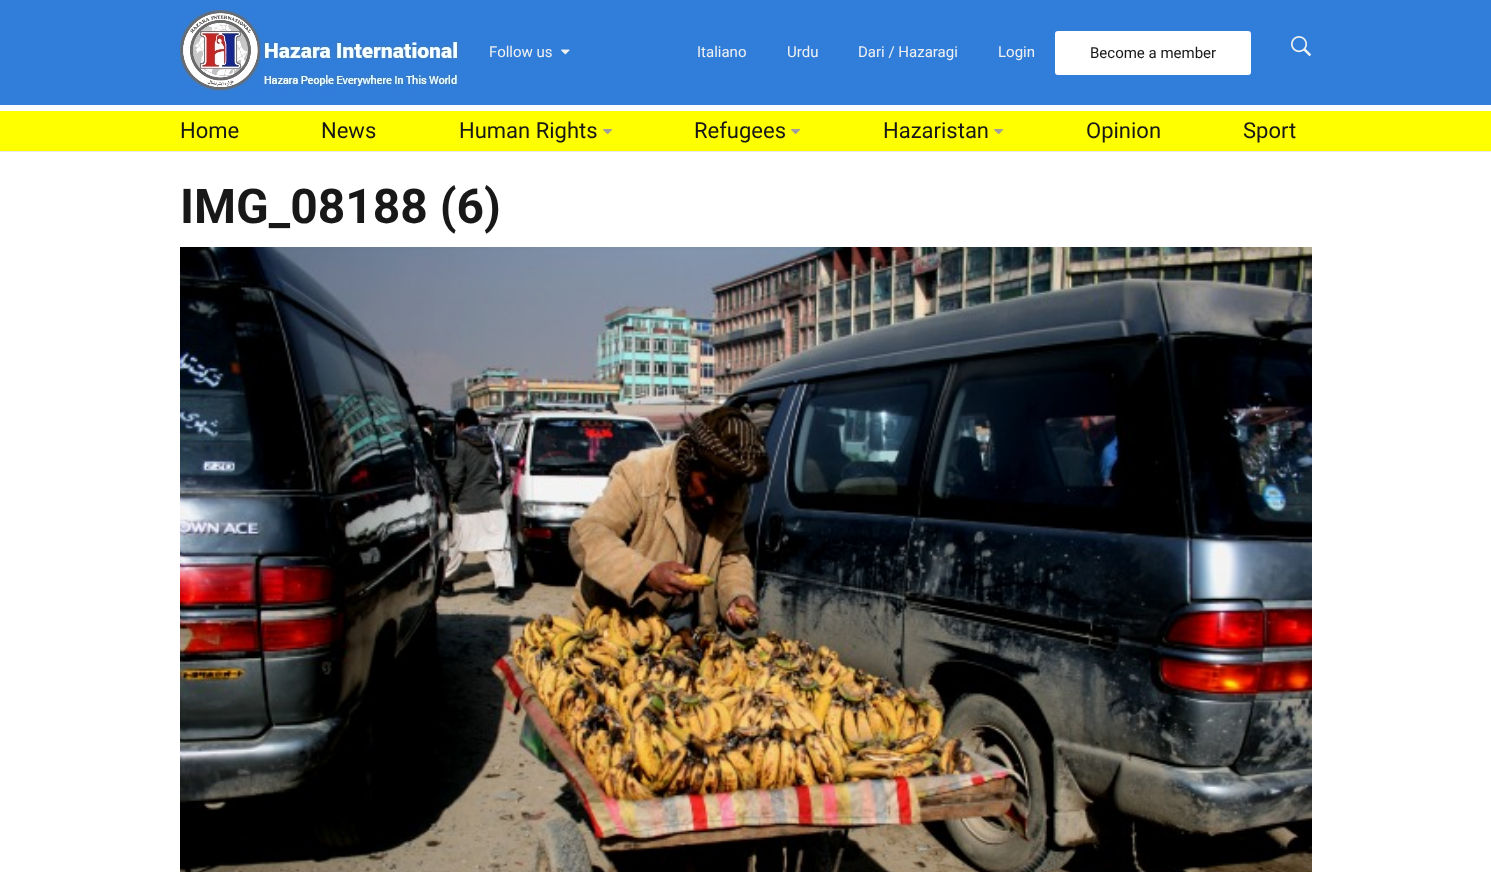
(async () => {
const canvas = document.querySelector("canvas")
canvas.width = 1491
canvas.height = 872
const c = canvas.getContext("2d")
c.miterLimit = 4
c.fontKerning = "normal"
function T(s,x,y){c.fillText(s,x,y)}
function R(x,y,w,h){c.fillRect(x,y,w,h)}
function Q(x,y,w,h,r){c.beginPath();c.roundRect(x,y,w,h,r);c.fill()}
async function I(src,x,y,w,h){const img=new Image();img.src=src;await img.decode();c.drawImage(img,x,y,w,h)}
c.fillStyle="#fff"
R(0,0,1491,872)
c.fillStyle="#307ed9"
R(0,0,1491,105)
await I("1.png",180,10,279,81)
c.font="15px Roboto"
c.fillStyle="#f1f1f1"
T("Follow us",489,57)
await I("2.png",561,49,9,6)
T("Italiano",697,57)
T("Urdu",787,57)
T("Dari / Hazaragi",858,57)
T("Login",998,57)
c.fillStyle="#fff"
Q(1055,31,196,44,3)
c.fillStyle="#181818"
T("Become a member",1090,58)
await I("3.png",1291,36,21,21)
c.fillStyle="#ff0"
R(0,111,1491,40)
c.fillStyle="#eaeaea"
R(0,151,1491,1)
c.font="22px Roboto"
c.fillStyle="#181818"
T("Home",180,138)
T("News",321,138)
T("Human Rights",459,138)
await I("4.png",603,129,10,6)
T("Refugees",694,138)
await I("4.png",791,129,10,6)
T("Hazaristan",883,138)
await I("4.png",994,129,10,6)
T("Opinion",1086,138)
T("Sport",1243,138)
c.font="bold 48px Roboto"
T("IMG_08188 (6)",180,223)
await I("5.png",180,247,1132,625)
})()
